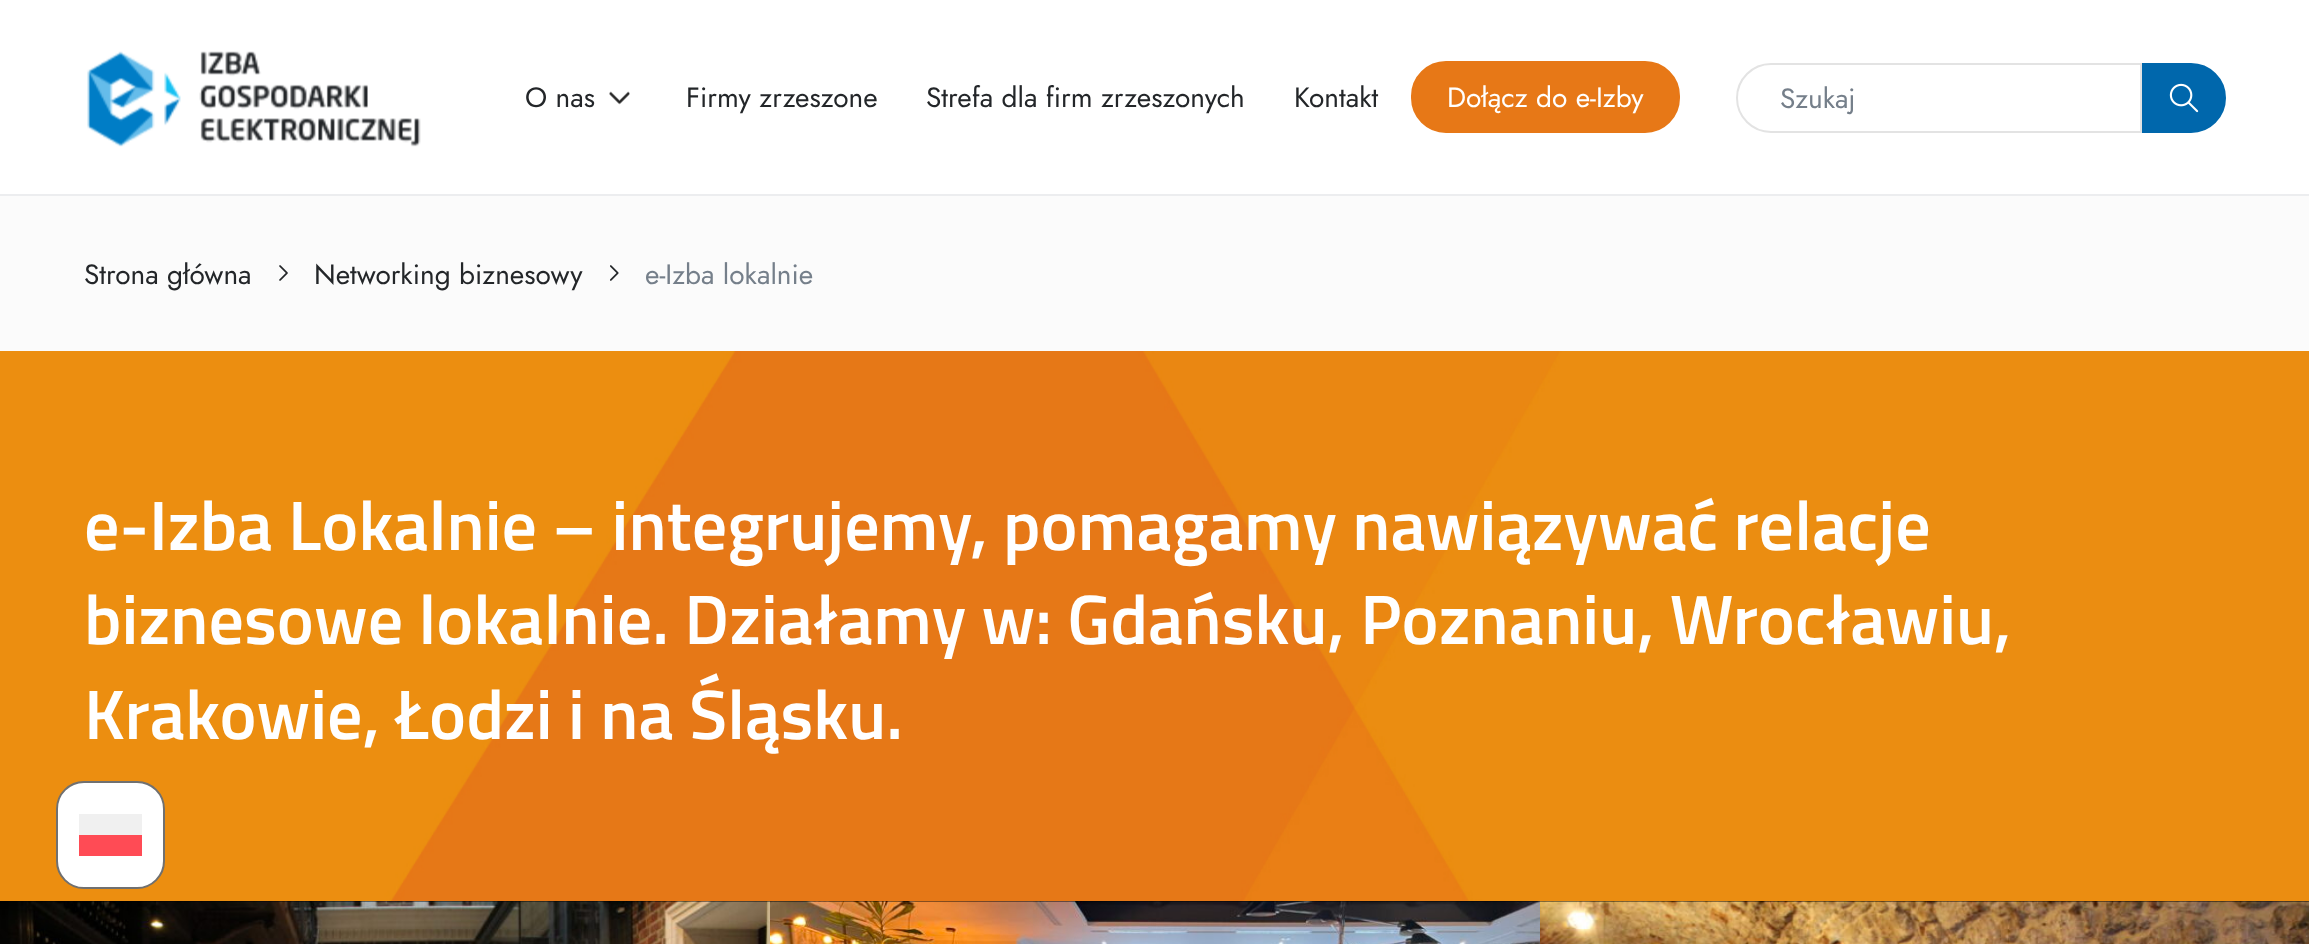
(async () => {
const canvas = document.querySelector("canvas")
canvas.width = 2309
canvas.height = 944
const c = canvas.getContext("2d")
c.miterLimit = 4
c.fontKerning = "normal"
function T(s,x,y){c.fillText(s,x,y)}
function R(x,y,w,h){c.fillRect(x,y,w,h)}
async function I(src,x,y,w,h){const img=new Image();img.src=src;await img.decode();c.drawImage(img,x,y,w,h)}
c.fillStyle="#fff"
R(0,0,2309,944)
c.fillStyle="#ecedef"
R(0,194,2309,2)
await I("1.png",87,51,334,96)
c.font="28px Jost"
c.fillStyle="#232629"
T("O nas",525,107)
await I("2.png",609,91,21,14)
T("Firmy zrzeszone",686,107)
T("Strefa dla firm zrzeszonych",926,107)
T("Kontakt",1294,107)
c.fillStyle="#e77817"
c.beginPath()
c.roundRect(1412,62,267,70,34)
c.fill()
c.strokeStyle="#e77817"
c.lineWidth=2
c.stroke()
c.fillStyle="#fff"
T("Dołącz do e-Izby",1447,107)
c.beginPath()
c.roundRect(1737,64,404,68,[34,0,0,34])
c.strokeStyle="#e3e3e3"
c.stroke()
c.fillStyle="#757f8a"
T("Szukaj",1780,108)
c.fillStyle="#0067ac"
c.beginPath()
c.roundRect(2143,64,82,68,[0,34,34,0])
c.fill()
c.strokeStyle="#0067ac"
c.stroke()
await I("3.png",2169,83,30,30)
c.fillStyle="#fbfbfb"
R(0,196,2309,155)
c.fillStyle="#232629"
T("Strona główna",84,284)
await I("4.png",279,265,9,16)
T("Networking biznesowy",314,284)
await I("5.png",610,265,9,16)
c.fillStyle="#757f8a"
T("e-Izba lokalnie",645,284)
await I("6.png",0,351,2309,550)
c.font="600 70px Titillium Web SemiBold"
c.fillStyle="#fff"
T("e-Izba Lokalnie – integrujemy, pomagamy nawiązywać relacje",84,550)
T("biznesowe lokalnie. Działamy w: Gdańsku, Poznaniu, Wrocławiu,",84,644)
T("Krakowie, Łodzi i na Śląsku.",84,739)
c.fillStyle="#000"
R(0,901,2309,1)
await I("7.png",0,901,770,43)
await I("8.png",770,901,770,43)
await I("9.png",1540,901,769,43)
c.fillStyle="#fff"
c.beginPath()
c.roundRect(57,782,107,106,27)
c.fill()
c.strokeStyle="#707070"
c.stroke()
c.fillStyle="#ff4b55"
R(79,835,63,21)
c.fillStyle="#f0f0f0"
R(79,814,63,21)
})()
